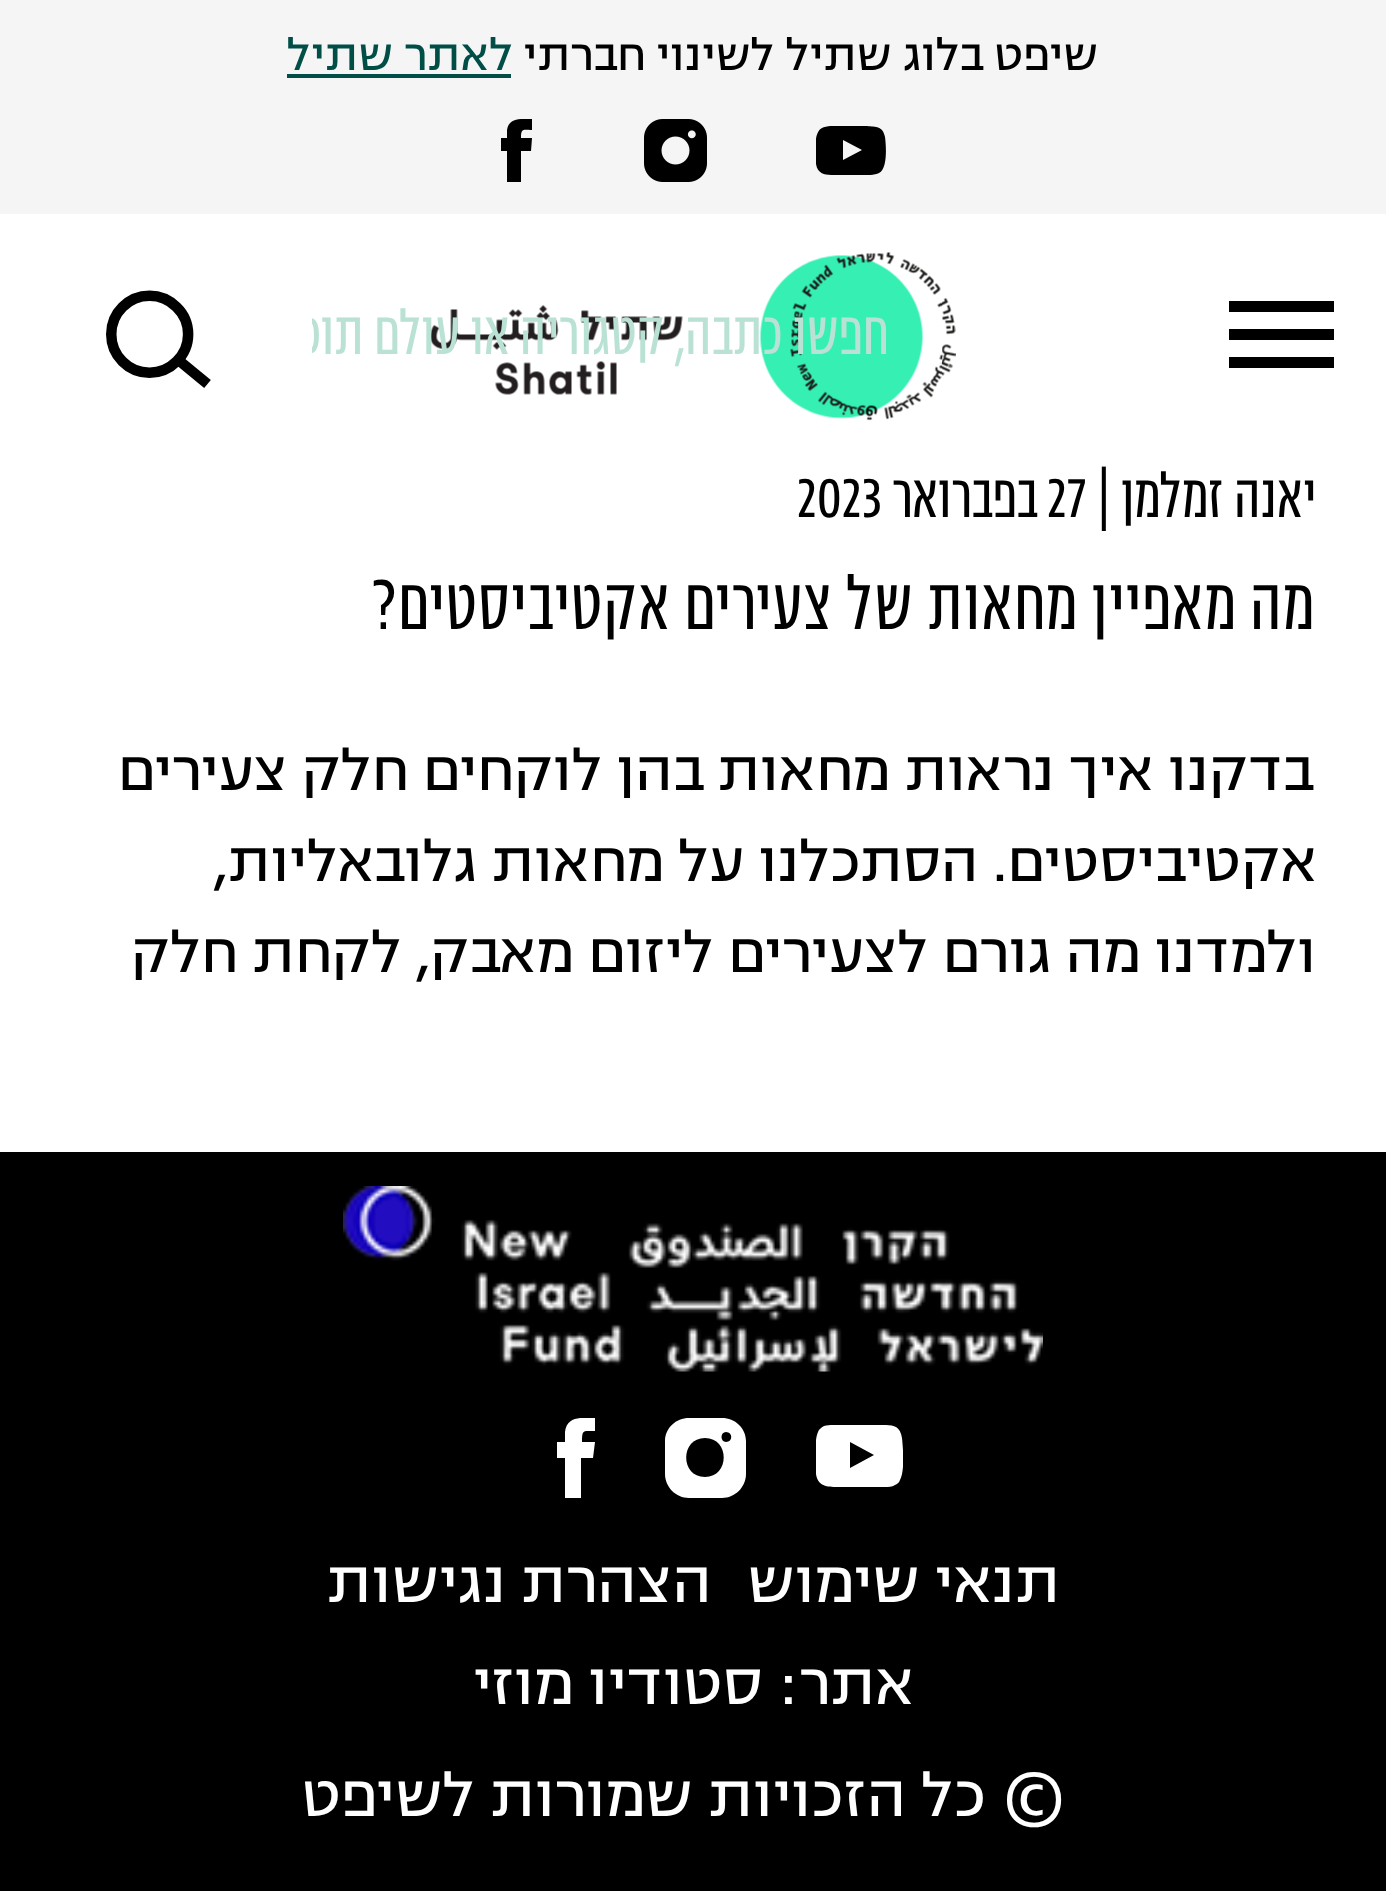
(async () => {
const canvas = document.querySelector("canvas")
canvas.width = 1386
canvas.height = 1891
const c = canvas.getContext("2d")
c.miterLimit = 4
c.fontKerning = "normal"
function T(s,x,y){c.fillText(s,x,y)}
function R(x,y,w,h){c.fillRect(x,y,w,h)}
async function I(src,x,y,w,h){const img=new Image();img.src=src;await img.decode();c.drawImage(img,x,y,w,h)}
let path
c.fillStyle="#fff"
R(0,0,1386,1891)
c.fillStyle="#000"
R(1229,329,105,11)
R(1229,301,105,11)
R(1229,357,105,11)
c.fillStyle="#f5f5f5"
R(0,0,1386,214)
c.direction="rtl"
c.font="49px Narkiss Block"
c.fillStyle="#000"
T("שיפט בלוג שתיל לשינוי חברתי",1098,70)
c.fillStyle="#014e46"
T("לאתר שתיל",512,70)
R(287,74,224,4)
c.save()
c.beginPath()
c.rect(816,126,70,49)
c.clip()
c.fillStyle="#000"
path = new Path2D("M885 137c-2-11-9-10-18-11h-22c-5 0-18-1-23 2c-9 4-7 29-6 36c2 12 12 11 21 11h19c5 0 18 1 23-2c9-4 7-29 6-36zm-23 13l-19 10v-20z")
c.fill(path,"evenodd")
c.restore()
await I("1.png",644,119,63,63)
c.save()
c.beginPath()
c.rect(501,119,31,63)
c.clip()
c.fillStyle="#000"
path = new Path2D("M521 138c0-10 2-8 11-8v-11c-10 0-23-2-25 11v8h-7v13h7v31h14v-31h10l1-13h-11")
c.fill(path,"evenodd")
c.restore()
await I("2.png",431,252,525,169)
c.save()
c.beginPath()
c.rect(312,294,577,84)
c.clip()
c.font="300 70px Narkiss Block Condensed"
c.fillStyle="#b9e1d4"
T("חפשו כתבה, קטגוריה או עולם תוכן",889,354)
c.restore()
path = new Path2D("M176.5 361.5c-15 15-39 15-54 0c-15-15-15-39.5 0-54.5c15-15 39-15 54 0c15.5 15 15.5 39.5 0 54.5z")
c.strokeStyle="#000"
c.lineWidth=10.5
c.stroke(path)
path = new Path2D("M176.5 358.5l31 25.5")
c.stroke(path)
c.font="300 70px Narkiss Block Condensed"
c.fillStyle="#000"
T("יאנה זמלמן |",1316,517)
c.direction="ltr"
T("27",1047,517)
c.direction="rtl"
T("בפברואר",1039,517)
c.direction="ltr"
T("2023",797,517)
c.letterSpacing="1.2px"
c.direction="rtl"
c.font="300 84px Narkiss Block Condensed"
T("מה מאפיין מחאות של צעירים אקטיביסטים?",1316,629)
c.letterSpacing="0px"
c.font="63px Narkiss Block"
T("בדקנו איך נראות מחאות בהן לוקחים חלק צעירים",1316,790)
T("אקטיביסטים. הסתכלנו על מחאות גלובאליות,",1316,881)
T("ולמדנו מה גורם לצעירים ליזום מאבק, לקחת חלק",1316,972)
R(0,1152,1386,739)
await I("3.png",343,1186,700,186)
c.save()
c.beginPath()
c.rect(816,1425,87,63)
c.clip()
c.fillStyle="#fff"
path = new Path2D("M902 1438c-2-14-11-13-22-13h-27h-20c-3 0-6 0-9 1c-3 2-5 3-6 6c-4 9-3 32-2 42c2 14 14 13 26 13h24h19c3 0 7 0 10-2c2-1 4-2 5-5c5-9 3-32 2-42zm-28 17l-24 13v-26z")
c.fill(path,"evenodd")
c.restore()
c.fillStyle="#fff"
path = new Path2D("M726 1442c-6 0-6-10 0-10c7 0 7 10 0 10zm-21 35c-25 0-25-39 0-39c25 0 25 39 0 39zm17-59h-33c-13 0-24 10-24 23v33c0 13 11 24 24 24h33c13 0 24-11 24-24v-33c0-13-11-23-24-23z")
c.fill(path,"evenodd")
c.save()
c.beginPath()
c.rect(557,1418,38,80)
c.clip()
path = new Path2D("M582 1442c0-13 1-11 13-11v-13c-12 0-28-3-30 14v10h-9v16h9v40h16v-40h12l2-16h-13")
c.fill(path,"evenodd")
c.restore()
c.font="66.5px Narkiss Block"
T("תנאי שימוש",1060,1602)
T("הצהרת נגישות",712,1602)
T("אתר:",913,1704)
T("סטודיו מוזי",763,1704)
T("© כל הזכויות שמורות לשיפט",1067,1816)
})()
